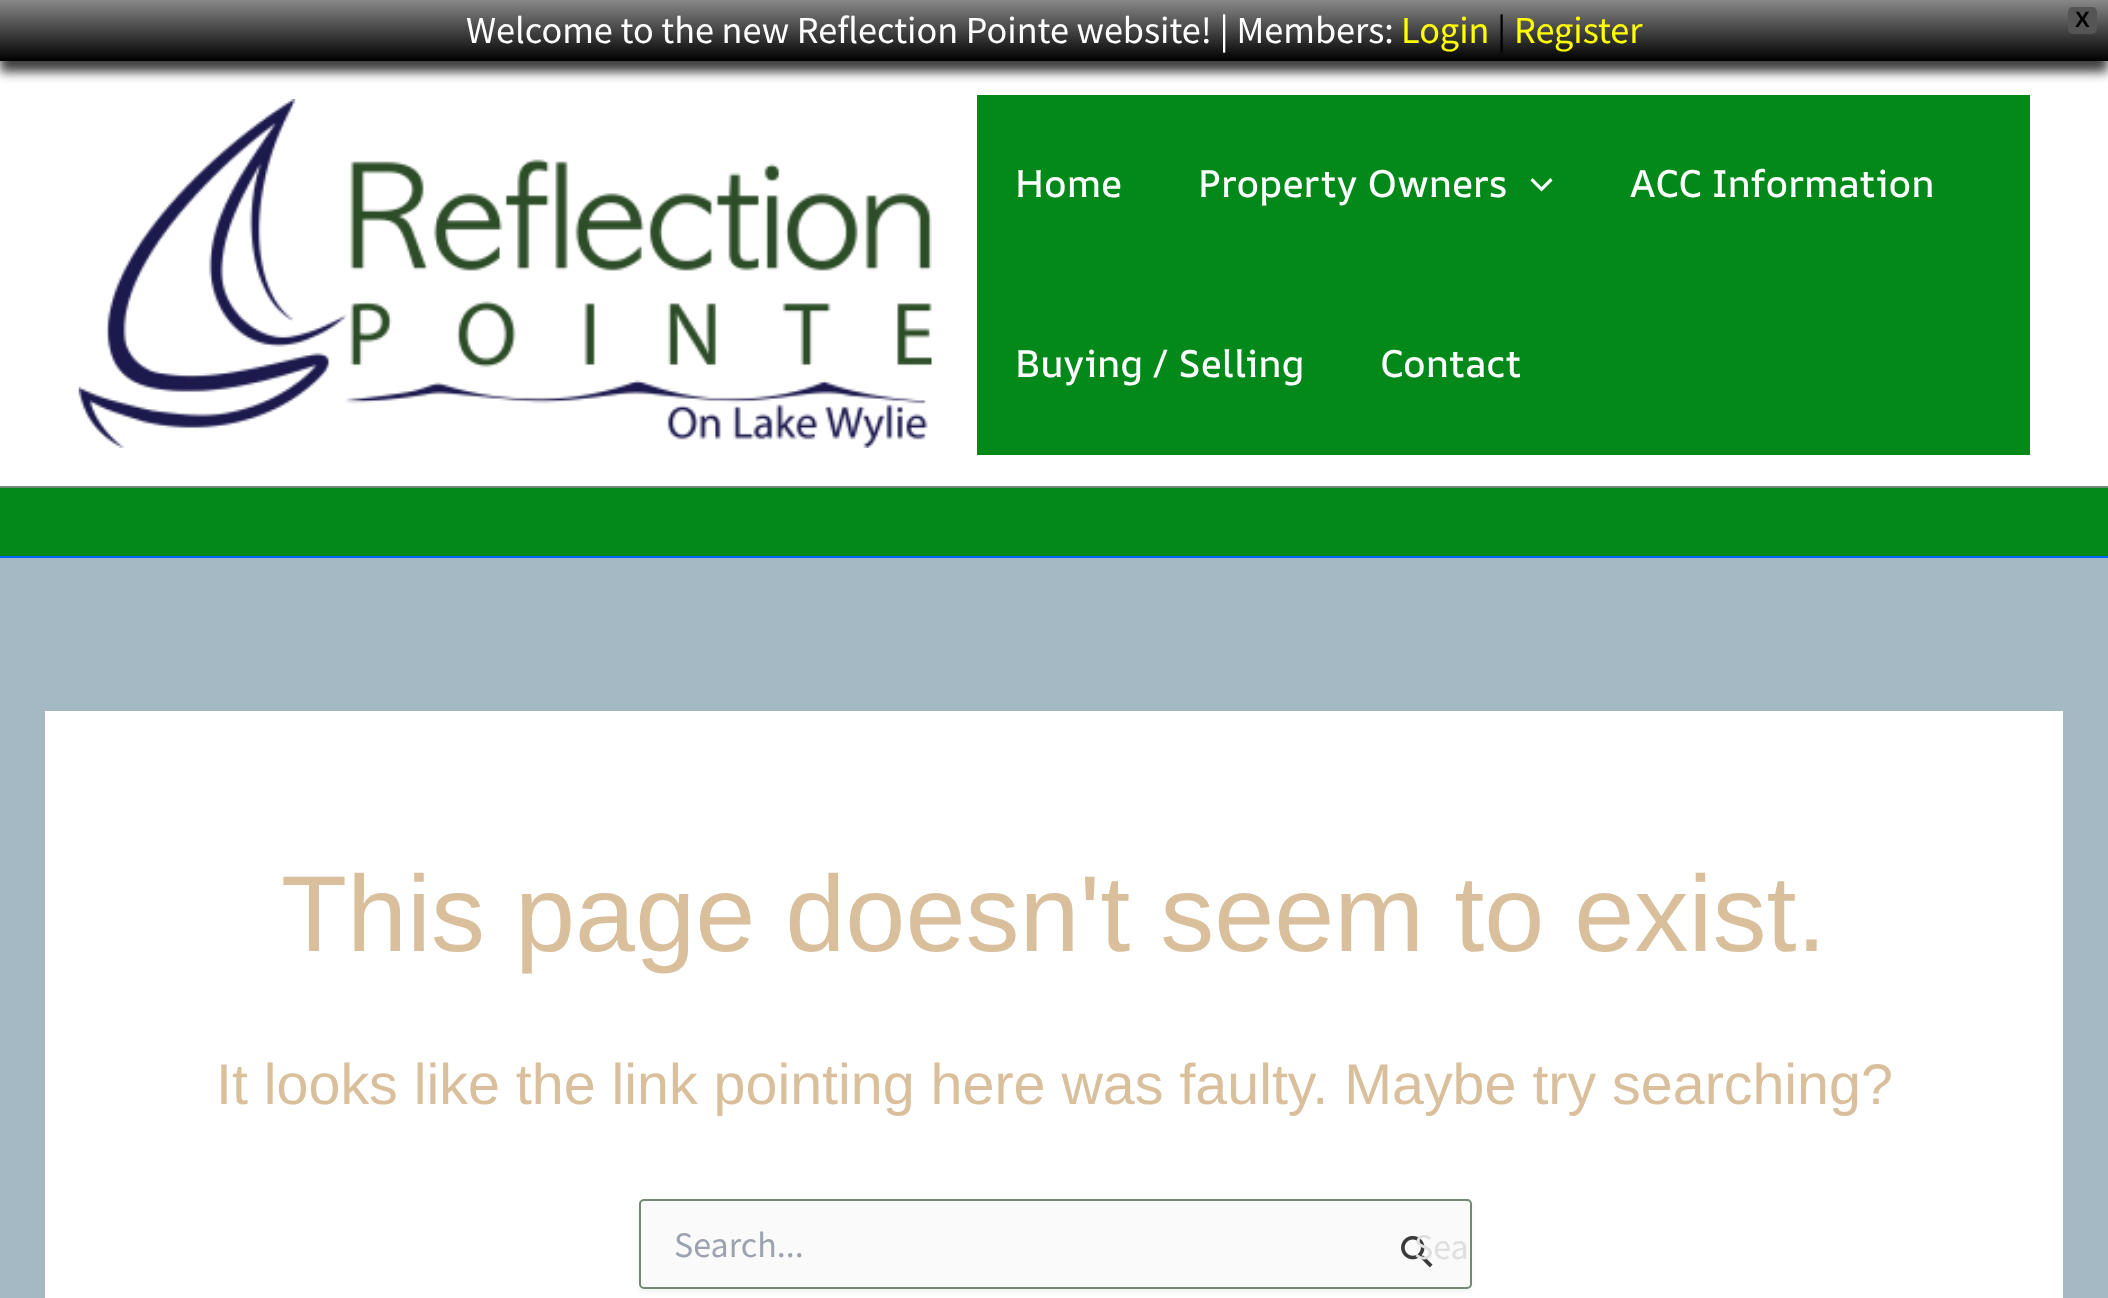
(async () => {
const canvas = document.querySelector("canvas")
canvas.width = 2108
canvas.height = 1298
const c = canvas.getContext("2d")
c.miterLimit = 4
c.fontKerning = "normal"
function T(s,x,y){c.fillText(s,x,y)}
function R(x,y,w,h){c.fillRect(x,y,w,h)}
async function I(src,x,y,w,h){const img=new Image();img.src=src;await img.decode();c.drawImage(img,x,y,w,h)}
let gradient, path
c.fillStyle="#a4b9c3"
R(0,0,2108,1298)
c.fillStyle="#fff"
R(0,61,2108,425)
c.fillStyle="#000000bf"
c.filter="blur(5.5px)"
c.beginPath()
c.rect(0,11,2108,61)
c.fill()
c.filter="none"
gradient = c.createLinearGradient(1054,0,1054,61)
gradient.addColorStop(0,"#888")
gradient.addColorStop(1,"#000")
c.fillStyle = gradient
R(0,0,2108,61)
c.font="38.25px Source Sans Pro"
c.fillStyle="#fff"
T("Welcome to the new Reflection Pointe website! | Members:",466,43)
c.fillStyle="#ff0"
T("Login",1401,43)
c.fillStyle="#000"
T("|",1497,43)
c.fillStyle="#ff0"
T("Register",1514,43)
c.fillStyle="#555"
c.beginPath()
c.roundRect(2069,8,27,25,4)
c.fill()
c.strokeStyle="#555"
c.lineWidth=2
c.stroke()
c.font="bold 22px Liberation Sans"
c.fillStyle="#000"
T("X",2075,27)
c.fillStyle="#718975"
R(0,486,2108,2)
await I("1.png",78,99,854,349)
c.fillStyle="#028919"
R(977,95,1053,360)
c.font="500 38.25px AR One Sans"
c.fillStyle="#fff"
T("Home",1015,197)
T("Property Owners",1198,197)
path = new Path2D("M1530.5 180.5l11 11l11-11l-2-2.5l-9 9l-9-9z")
c.fill(path)
T("ACC Information",1630,197)
T("Buying / Selling",1015,377)
T("Contact",1380,377)
c.fillStyle="#028919"
R(0,488,2108,68)
c.fillStyle="#06f"
R(0,556,2108,2)
c.fillStyle="#fff"
R(45,711,2018,587)
c.font="108px Liberation Sans"
c.fillStyle="#d9bf9b"
T("This page doesn't seem to exist.",281,951)
c.font="57.4px Liberation Sans"
T("It looks like the link pointing here was faulty. Maybe try searching?",216,1104)
c.fillStyle="#0000000d"
c.filter="blur(2px)"
c.beginPath()
c.roundRect(639,1202,833,90,5)
c.fill()
c.filter="none"
c.fillStyle="#fafafa"
c.beginPath()
c.roundRect(640,1200,831,88,4)
c.fill()
c.strokeStyle="#718975"
c.stroke()
c.font="36px Source Sans Pro"
c.fillStyle="#9ca3af"
T("Search...",674,1257)
await I("2.png",1401,1235,32,33)
c.fillStyle="#dfdfdf"
T("Sea",1414,1259)
})()
